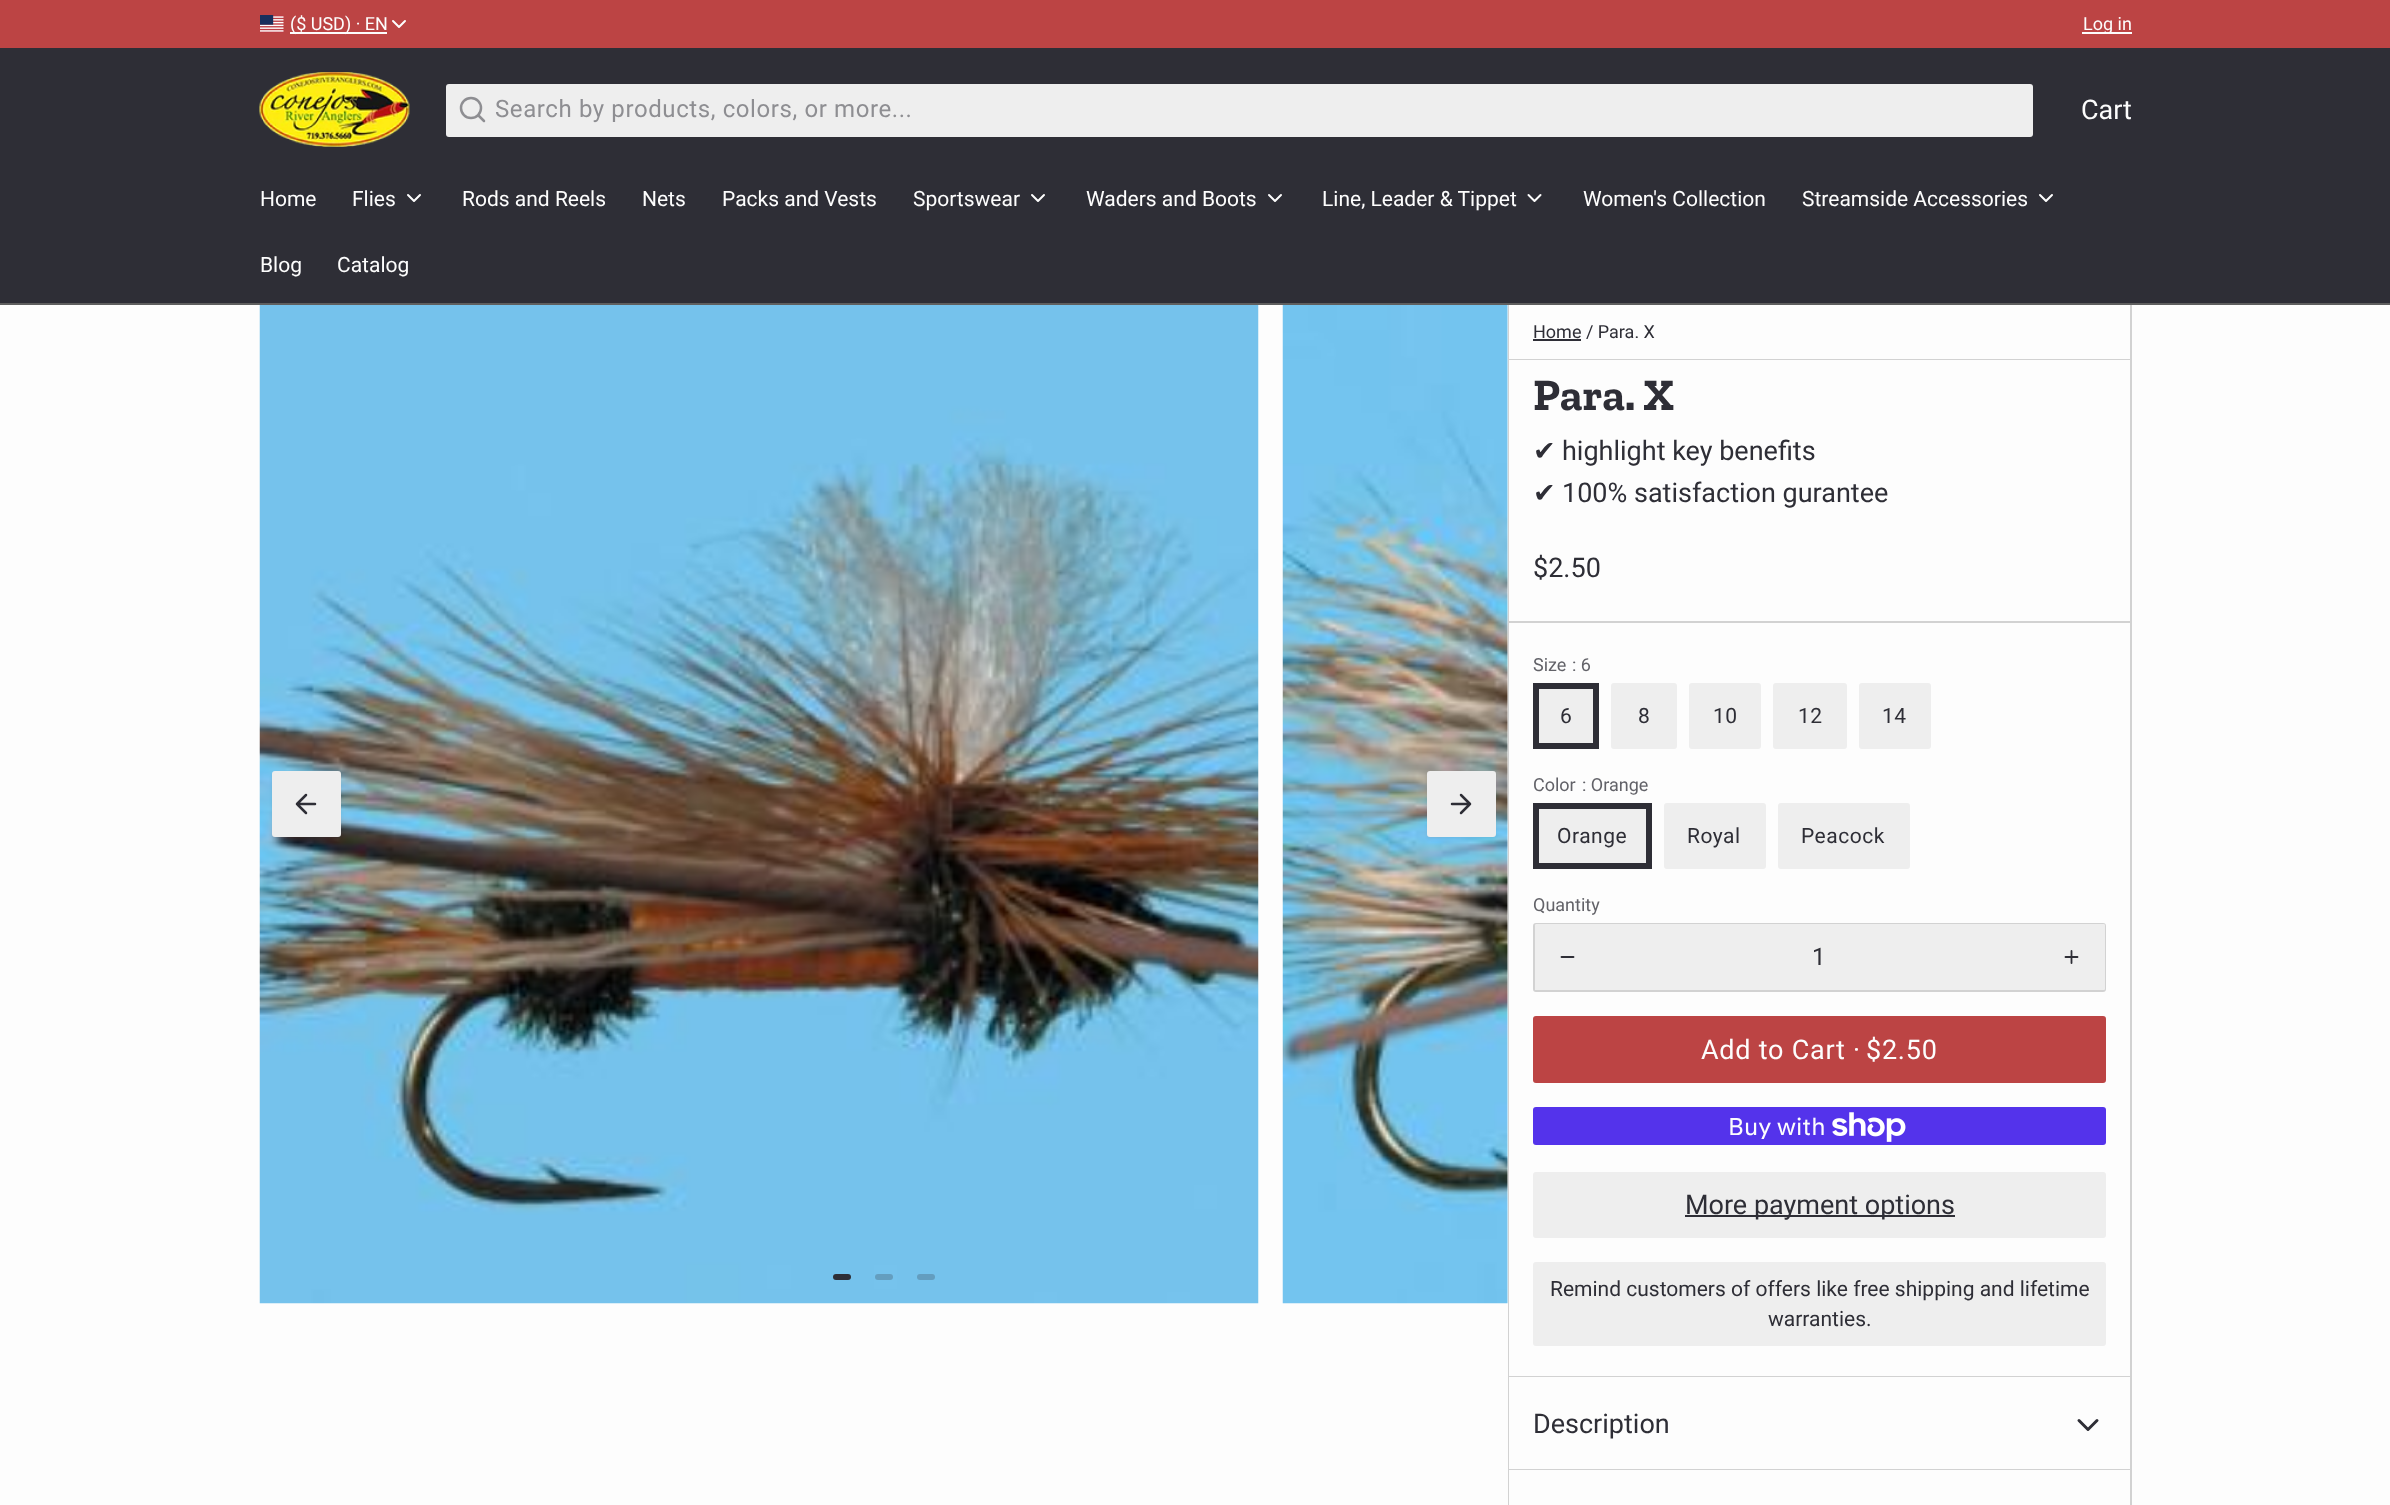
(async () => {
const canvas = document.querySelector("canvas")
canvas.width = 2390
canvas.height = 1505
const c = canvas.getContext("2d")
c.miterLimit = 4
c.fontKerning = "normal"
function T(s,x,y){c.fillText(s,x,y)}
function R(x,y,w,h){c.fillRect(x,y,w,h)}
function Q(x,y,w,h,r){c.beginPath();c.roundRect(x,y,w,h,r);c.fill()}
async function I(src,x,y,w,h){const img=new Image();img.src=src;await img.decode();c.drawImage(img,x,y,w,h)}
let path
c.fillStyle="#fdfdfd"
R(0,0,2390,1505)
c.fillStyle="#bc4444"
R(0,0,2390,48)
await I("1.png",260,15,24,18)
c.fillStyle="#fdfdfd"
R(290,32,97,2)
c.font="18px Roboto"
T("($ USD) · EN",290,30)
path = new Path2D("M393 21l6 6l6-6")
c.strokeStyle="#fdfdfd"
c.lineWidth=2
c.lineCap="round"
c.lineJoin="round"
c.stroke(path)
R(2082,32,50,2)
T("Log in",2083,30)
c.fillStyle="#2e2e36"
R(0,48,2390,255)
c.fillStyle="#5f5f5f"
R(0,303,2390,2)
await I("2.png",259,72,151,75)
c.fillStyle="#eee"
Q(446,84,1587,53,3)
c.beginPath()
c.arc(471,108,10,0,7)
c.strokeStyle="#8e8e92"
c.lineWidth=2.5
c.stroke()
path = new Path2D("M484 121l-5.5-5.5")
c.stroke(path)
c.letterSpacing="0.6px"
c.font="24px Roboto"
c.fillStyle="#8e8e92"
T("Search by products, colors, or more...",495,117)
c.letterSpacing="0px"
c.font="27px Roboto"
c.fillStyle="#fdfdfd"
T("Cart",2081,119)
c.font="21px Roboto"
T("Home",260,206)
T("Flies",352,206)
path = new Path2D("M408 195l6 6l6-6")
c.strokeStyle="#fdfdfd"
c.lineWidth=2
c.stroke(path)
T("Rods and Reels",462,206)
T("Nets",642,206)
T("Packs and Vests",722,206)
T("Sportswear",913,206)
path = new Path2D("M1032 195l6 6l6-6")
c.stroke(path)
T("Waders and Boots",1086,206)
path = new Path2D("M1269 195l6 6l6-6")
c.stroke(path)
T("Line, Leader & Tippet",1322,206)
path = new Path2D("M1528.5 195l6 6l6-6")
c.stroke(path)
T("Women's Collection",1583,206)
T("Streamside Accessories",1802,206)
path = new Path2D("M2040 195l6 6l6-6")
c.stroke(path)
T("Blog",260,272)
T("Catalog",337,272)
await I("3.png",259,305,1000,999)
await I("4.png",1282,305,226,999)
c.fillStyle="#0000000d"
c.filter="blur(1.5px)"
c.beginPath()
c.roundRect(272,773,69,66,3)
c.fill()
c.filter="none"
c.fillStyle="#eee"
c.beginPath()
c.roundRect(273,772,67,64,2)
c.fill()
c.strokeStyle="#eee"
c.lineJoin="miter"
c.stroke()
path = new Path2D("M315 804h-18m9 9l-9-9l9-9")
c.strokeStyle="#2e2e36"
c.lineWidth=2.5
c.lineJoin="round"
c.stroke(path)
c.fillStyle="#0000000d"
c.filter="blur(1.5px)"
c.beginPath()
c.roundRect(1427,773,69,66,3)
c.fill()
c.filter="none"
c.fillStyle="#eee"
c.beginPath()
c.roundRect(1428,772,67,64,2)
c.fill()
c.strokeStyle="#eee"
c.lineWidth=2
c.lineJoin="miter"
c.stroke()
path = new Path2D("M1452 804h18m-9-9l9 9l-9 9")
c.strokeStyle="#2e2e36"
c.lineWidth=2.5
c.lineJoin="round"
c.stroke(path)
c.fillStyle="#2e2e36"
Q(833,1274,18,6,3)
c.fillStyle="#649ebf"
Q(875,1274,18,6,3)
c.fillStyle="#639dbf"
Q(917,1274,18,6,3)
c.fillStyle="#d2d2d2"
R(2130,305,2,1200)
R(1508,305,1,1200)
R(1509,359,621,1)
c.fillStyle="#2e2e36"
R(1533,339,48,2)
c.font="18px Roboto"
T("Home / Para. X",1533,338)
c.font="bold 45px Zilla Slab"
T("Para. X",1533,410)
c.font="27px DejaVu Sans"
T("✔",1533,460)
c.font="27px Roboto"
T("highlight key benefits",1562,460)
c.font="27px DejaVu Sans"
T("✔",1533,502)
c.font="27px Roboto"
T("100% satisfaction gurantee",1562,502)
c.fillStyle="#d2d2d2"
R(1509,621,621,2)
c.fillStyle="#2e2e36"
T("$2.50",1533,577)
c.fillStyle="#d2d2d2"
R(1509,1376,621,1)
c.font="18px Roboto"
c.fillStyle="#626268"
T("Size",1533,671)
T(": 6",1572,671)
c.fillStyle="#eee"
c.beginPath()
c.rect(1536,686,60,60)
c.fill()
c.lineWidth=6
c.lineJoin="miter"
c.stroke()
c.letterSpacing="0.5px"
c.font="21px Roboto"
c.fillStyle="#2e2e36"
T("6",1560,723)
c.fillStyle="#eee"
Q(1611,683,66,66,3)
c.fillStyle="#2e2e36"
T("8",1638,723)
c.fillStyle="#eee"
Q(1689,683,72,66,3)
c.fillStyle="#2e2e36"
T("10",1713,723)
c.fillStyle="#eee"
Q(1773,683,74,66,3)
c.fillStyle="#2e2e36"
T("12",1798,723)
c.fillStyle="#eee"
Q(1859,683,72,66,3)
c.fillStyle="#2e2e36"
T("14",1882,723)
c.letterSpacing="0px"
c.font="18px Roboto"
c.fillStyle="#626268"
T("Color",1533,791)
T(": Orange",1582,791)
c.fillStyle="#eee"
c.beginPath()
c.rect(1536,806,113,60)
c.fill()
c.stroke()
c.letterSpacing="0.5px"
c.font="21px Roboto"
c.fillStyle="#2e2e36"
T("Orange",1557,843)
c.fillStyle="#eee"
Q(1664,803,102,66,3)
c.fillStyle="#2e2e36"
T("Royal",1687,843)
c.fillStyle="#eee"
Q(1778,803,132,66,3)
c.fillStyle="#2e2e36"
T("Peacock",1801,843)
c.letterSpacing="0px"
c.font="18px Roboto"
c.fillStyle="#626268"
T("Quantity",1533,911)
c.beginPath()
c.roundRect(1534,924,571,67,2)
c.strokeStyle="#d2d2d2"
c.lineWidth=2
c.stroke()
c.fillStyle="#eee"
c.beginPath()
c.roundRect(1535,924,66,66,[1.5,0,0,1.5])
c.fill()
path = new Path2D("M1536 924c0 0-1 1-1 2v62c0 1 1 2 1 2h65v-66zm1 2v62h62v-62z")
c.fill(path,"evenodd")
path = new Path2D("M1561.5 957h12")
c.strokeStyle="#2e2e36"
c.lineWidth=1.8
c.lineJoin="round"
c.stroke(path)
R(1601,924,438,66)
c.letterSpacing="0.6px"
c.font="24px Roboto"
c.fillStyle="#2e2e36"
T("1",1812,965)
c.fillStyle="#eee"
c.beginPath()
c.roundRect(2039,924,66,66,[0,1.5,1.5,0])
c.fill()
path = new Path2D("M2039 924v66h65c0 0 1-1 1-2v-62c0-1-1-2-1-2zm2 2v62h62v-62z")
c.fill(path,"evenodd")
path = new Path2D("M2071.5 951v12m-6-6h12")
c.stroke(path)
c.fillStyle="#bc4444"
c.beginPath()
c.roundRect(1534,1017,571,65,2)
c.fill()
c.strokeStyle="#bc4444"
c.lineWidth=2
c.lineJoin="miter"
c.stroke()
c.letterSpacing="0.75px"
c.font="27px Roboto"
c.fillStyle="#fdfdfd"
T("Add to Cart ·",1701,1059)
T("$2.50",1866,1059)
c.fillStyle="#5433eb"
Q(1533,1107,573,38,3)
c.letterSpacing="0px"
c.font="24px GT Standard"
c.fillStyle="#fdfdfd"
T("Buy with",1728,1135)
await I("5.png",1832,1112,74,30)
c.fillStyle="#eee"
Q(1533,1172,573,66,3)
c.fillStyle="#2e2e36"
R(1685,1215,270,2)
c.font="27px Roboto"
T("More payment options",1685,1214)
c.fillStyle="#eee"
Q(1533,1262,573,84,3)
c.font="21px Roboto"
c.fillStyle="#2e2e36"
T("Remind customers of offers like free shipping and lifetime",1550,1296)
T("warranties.",1768,1326)
c.fillStyle="#d2d2d2"
R(1509,1469,621,1)
c.font="27px Roboto"
c.fillStyle="#2e2e36"
T("Description",1533,1433)
path = new Path2D("M2079 1420.5l9 9l9-9")
c.strokeStyle="#2e2e36"
c.lineWidth=3
c.lineJoin="round"
c.stroke(path)
})()
